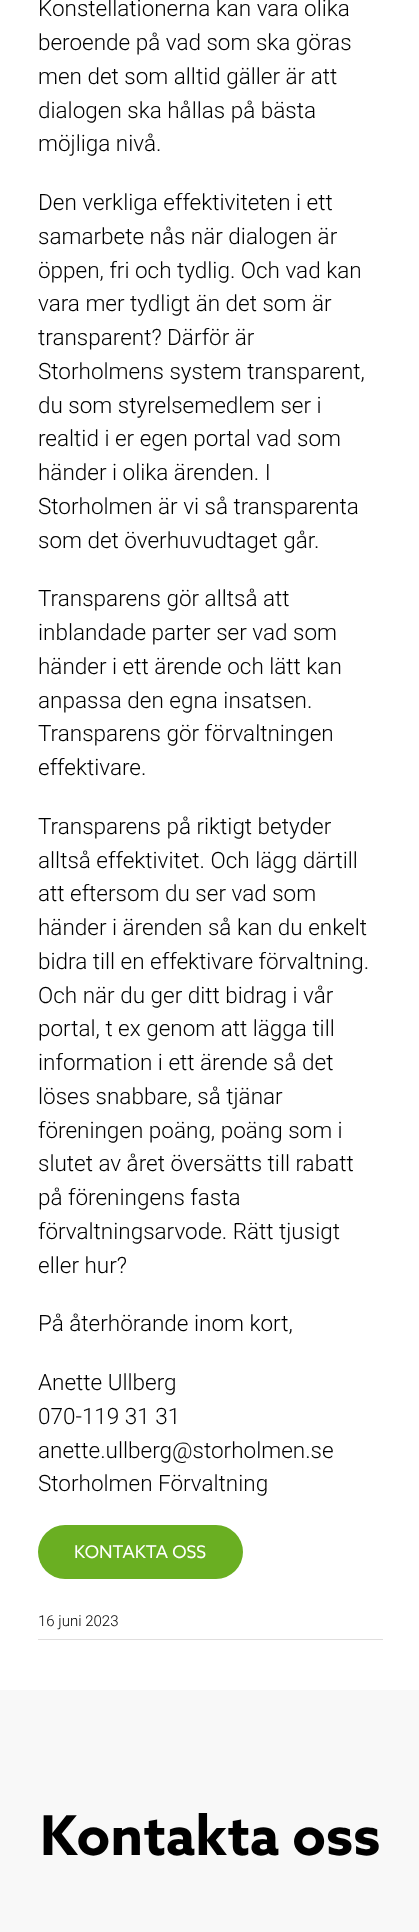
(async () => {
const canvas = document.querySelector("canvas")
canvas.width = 419
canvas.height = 1932
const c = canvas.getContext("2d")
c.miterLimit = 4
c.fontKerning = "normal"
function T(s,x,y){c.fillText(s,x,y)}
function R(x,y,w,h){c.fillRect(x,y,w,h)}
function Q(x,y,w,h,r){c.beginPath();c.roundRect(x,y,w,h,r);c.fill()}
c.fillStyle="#fff"
R(0,0,419,1932)
c.font="300 22.5px Roboto"
c.fillStyle="#000"
T("Konstellationerna kan vara olika",38,16)
T("beroende på vad som ska göras",38,50)
T("men det som alltid gäller är att",38,84)
T("dialogen ska hållas på bästa",38,118)
T("möjliga nivå.",38,151)
T("Den verkliga effektiviteten i ett",38,210)
T("samarbete nås när dialogen är",38,244)
T("öppen, fri och tydlig. Och vad kan",38,278)
T("vara mer tydligt än det som är",38,311)
T("transparent? Därför är",38,345)
T("Storholmens system transparent,",38,379)
T("du som styrelsemedlem ser i",38,413)
T("realtid i er egen portal vad som",38,446)
T("händer i olika ärenden. I",38,480)
T("Storholmen är vi så transparenta",38,514)
T("som det överhuvudtaget går.",38,548)
T("Transparens gör alltså att",38,606)
T("inblandade parter ser vad som",38,640)
T("händer i ett ärende och lätt kan",38,674)
T("anpassa den egna insatsen.",38,708)
T("Transparens gör förvaltningen",38,741)
T("effektivare.",38,775)
T("Transparens på riktigt betyder",38,834)
T("alltså effektivitet. Och lägg därtill",38,868)
T("att eftersom du ser vad som",38,901)
T("händer i ärenden så kan du enkelt",38,935)
T("bidra till en effektivare förvaltning.",38,969)
T("Och när du ger ditt bidrag i vår",38,1003)
T("portal, t ex genom att lägga till",38,1036)
T("information i ett ärende så det",38,1070)
T("löses snabbare, så tjänar",38,1104)
T("föreningen poäng, poäng som i",38,1138)
T("slutet av året översätts till rabatt",38,1171)
T("på föreningens fasta",38,1205)
T("förvaltningsarvode. Rätt tjusigt",38,1239)
T("eller hur?",38,1273)
T("På återhörande inom kort,",38,1331)
T("Anette Ullberg",38,1390)
T("070-119 31 31",38,1424)
T("anette.ullberg@storholmen.se",38,1458)
T("Storholmen Förvaltning",38,1491)
c.fillStyle="#6aaf22"
Q(38,1525,205,54,27)
c.font="17.5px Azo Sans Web"
c.fillStyle="#fff"
T("KONTAKTA OSS",74,1558)
c.fillStyle="#e0dede"
R(38,1639,345,1)
c.font="300 15px Roboto"
c.fillStyle="#000"
T("16 juni 2023",38,1626)
c.fillStyle="#f8f8f8"
R(0,1690,419,242)
c.font="bold 55px Azo Sans Web"
c.fillStyle="#000"
T("Kontakta oss",40,1855)
})()
